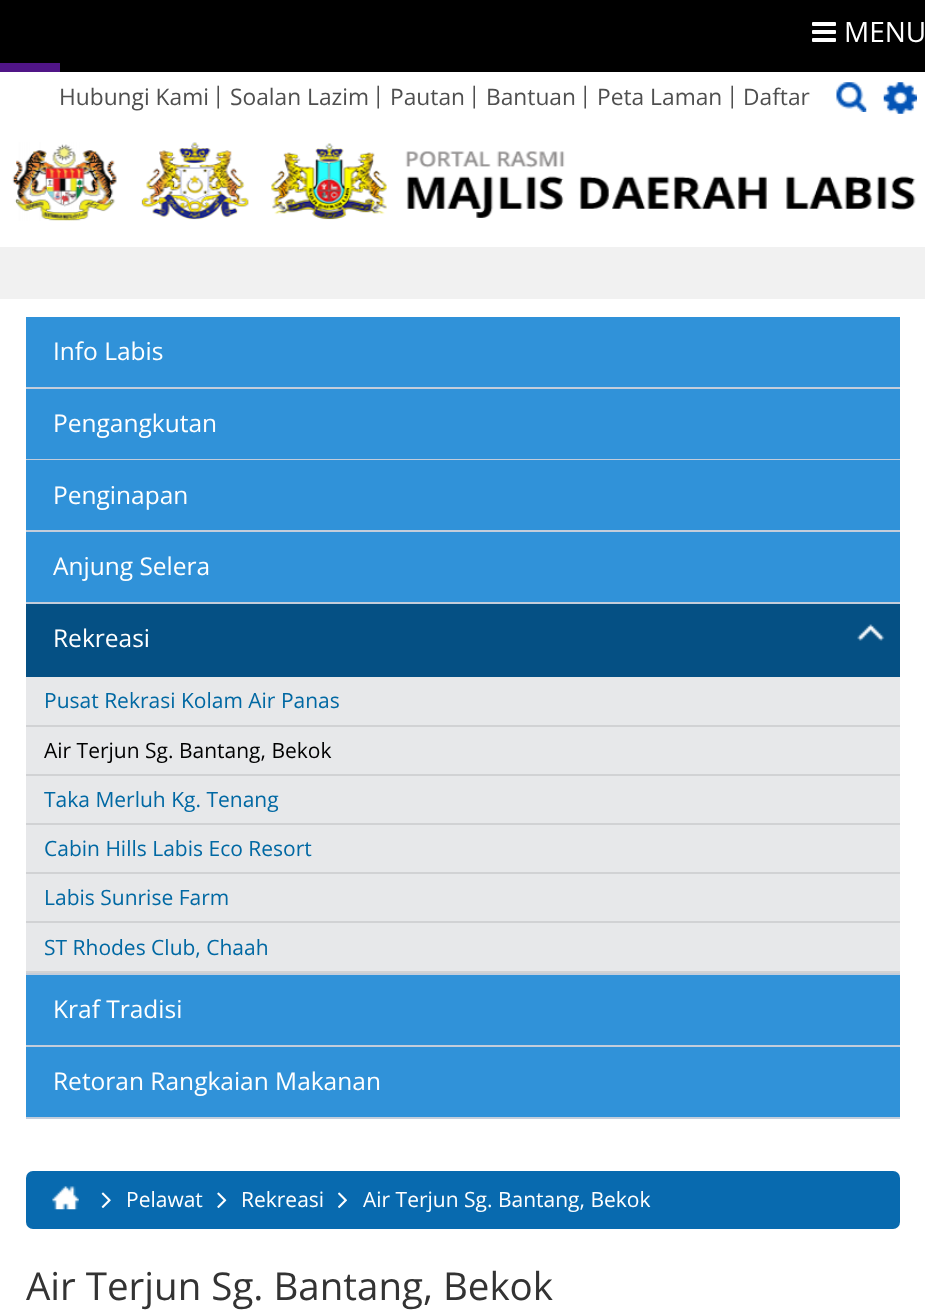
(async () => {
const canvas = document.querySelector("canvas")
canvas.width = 925
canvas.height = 1314
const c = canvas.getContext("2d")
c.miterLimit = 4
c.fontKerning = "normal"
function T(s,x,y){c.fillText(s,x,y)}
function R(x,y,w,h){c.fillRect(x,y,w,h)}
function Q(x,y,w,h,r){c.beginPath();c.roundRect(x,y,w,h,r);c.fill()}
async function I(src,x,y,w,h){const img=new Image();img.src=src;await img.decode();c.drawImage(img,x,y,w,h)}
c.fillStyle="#f1f1f1"
R(0,0,925,1314)
c.fillStyle="#000"
R(0,0,925,63)
await I("1.png",812,22,24,20)
c.font="28px Open Sans"
c.fillStyle="#fff"
T("MENU",844,42)
R(0,72,925,175)
c.fillStyle="#501587"
R(0,63,60,9)
c.fillStyle="#000"
R(828,63,97,9)
await I("2.png",883,82,34,32)
R(60,63,768,9)
c.font="22.75px Open Sans"
c.fillStyle="#4f4f4f"
T("Hubungi Kami",59,105)
T("|",212,103)
T("Soalan Lazim",230,105)
T("|",372,103)
T("Pautan",390,105)
T("|",468,103)
T("Bantuan",486,105)
T("|",579,103)
T("Peta Laman",597,105)
T("|",726,103)
T("Daftar",743,105)
await I("3.png",836,82,31,30)
await I("4.png",12,142,904,79)
c.fillStyle="#fff"
R(0,299,925,1015)
c.fillStyle="#3092d9"
R(26,317,874,70)
c.fillStyle="#c3cddb"
R(26,387,874,2)
c.font="24.5px Open Sans"
c.fillStyle="#fff"
T("Info Labis",53,360)
c.fillStyle="#3092d9"
R(26,389,874,70)
c.fillStyle="#c3cddb"
R(26,459,874,1)
c.fillStyle="#fff"
T("Pengangkutan",53,432)
c.fillStyle="#3092d9"
R(26,460,874,70)
c.fillStyle="#c3cddb"
R(26,530,874,2)
c.fillStyle="#fff"
T("Penginapan",53,504)
c.fillStyle="#3092d9"
R(26,532,874,70)
c.fillStyle="#c3cddb"
R(26,602,874,2)
c.fillStyle="#fff"
T("Anjung Selera",53,575)
c.fillStyle="#055084"
R(26,604,874,73)
c.fillStyle="#c3cddb"
R(26,973,874,2)
c.fillStyle="#fff"
T("Rekreasi",53,647)
await I("5.png",857,624,28,17)
c.fillStyle="#e7e8ea"
R(26,677,874,294)
c.fillStyle="#d1d2d4"
R(26,725,874,2)
c.font="21px Open Sans"
c.fillStyle="#0068a3"
T("Pusat Rekrasi Kolam Air Panas",44,708)
c.fillStyle="#d1d2d4"
R(26,774,874,2)
c.fillStyle="#000"
T("Air Terjun Sg. Bantang, Bekok",44,758)
c.fillStyle="#d1d2d4"
R(26,823,874,2)
c.fillStyle="#0068a3"
T("Taka Merluh Kg. Tenang",44,807)
c.fillStyle="#d1d2d4"
R(26,872,874,2)
c.fillStyle="#0068a3"
T("Cabin Hills Labis Eco Resort",44,856)
c.fillStyle="#d1d2d4"
R(26,921,874,2)
c.fillStyle="#0068a3"
T("Labis Sunrise Farm",44,905)
c.fillStyle="#d1d2d4"
R(26,971,874,2)
c.fillStyle="#0068a3"
T("ST Rhodes Club, Chaah",44,955)
c.fillStyle="#3092d9"
R(26,975,874,70)
c.fillStyle="#c3cddb"
R(26,1045,874,2)
c.font="24.5px Open Sans"
c.fillStyle="#fff"
T("Kraf Tradisi",53,1018)
c.fillStyle="#3092d9"
R(26,1047,874,70)
c.fillStyle="#c3cddb"
R(26,1117,874,2)
c.fillStyle="#fff"
T("Retoran Rangkaian Makanan",53,1090)
c.fillStyle="#086aaf"
Q(26,1171,874,58,7)
await I("6.png",52,1186,27,24)
await I("7.png",101,1192,10,16)
c.font="21px Open Sans"
c.fillStyle="#fff"
T("Pelawat",126,1207)
await I("8.png",217,1192,10,16)
T("Rekreasi",241,1207)
await I("9.png",338,1192,9,16)
T("Air Terjun Sg. Bantang, Bekok",363,1207)
c.font="38.5px Open Sans"
c.fillStyle="#333"
T("Air Terjun Sg. Bantang, Bekok",26,1300)
})()
